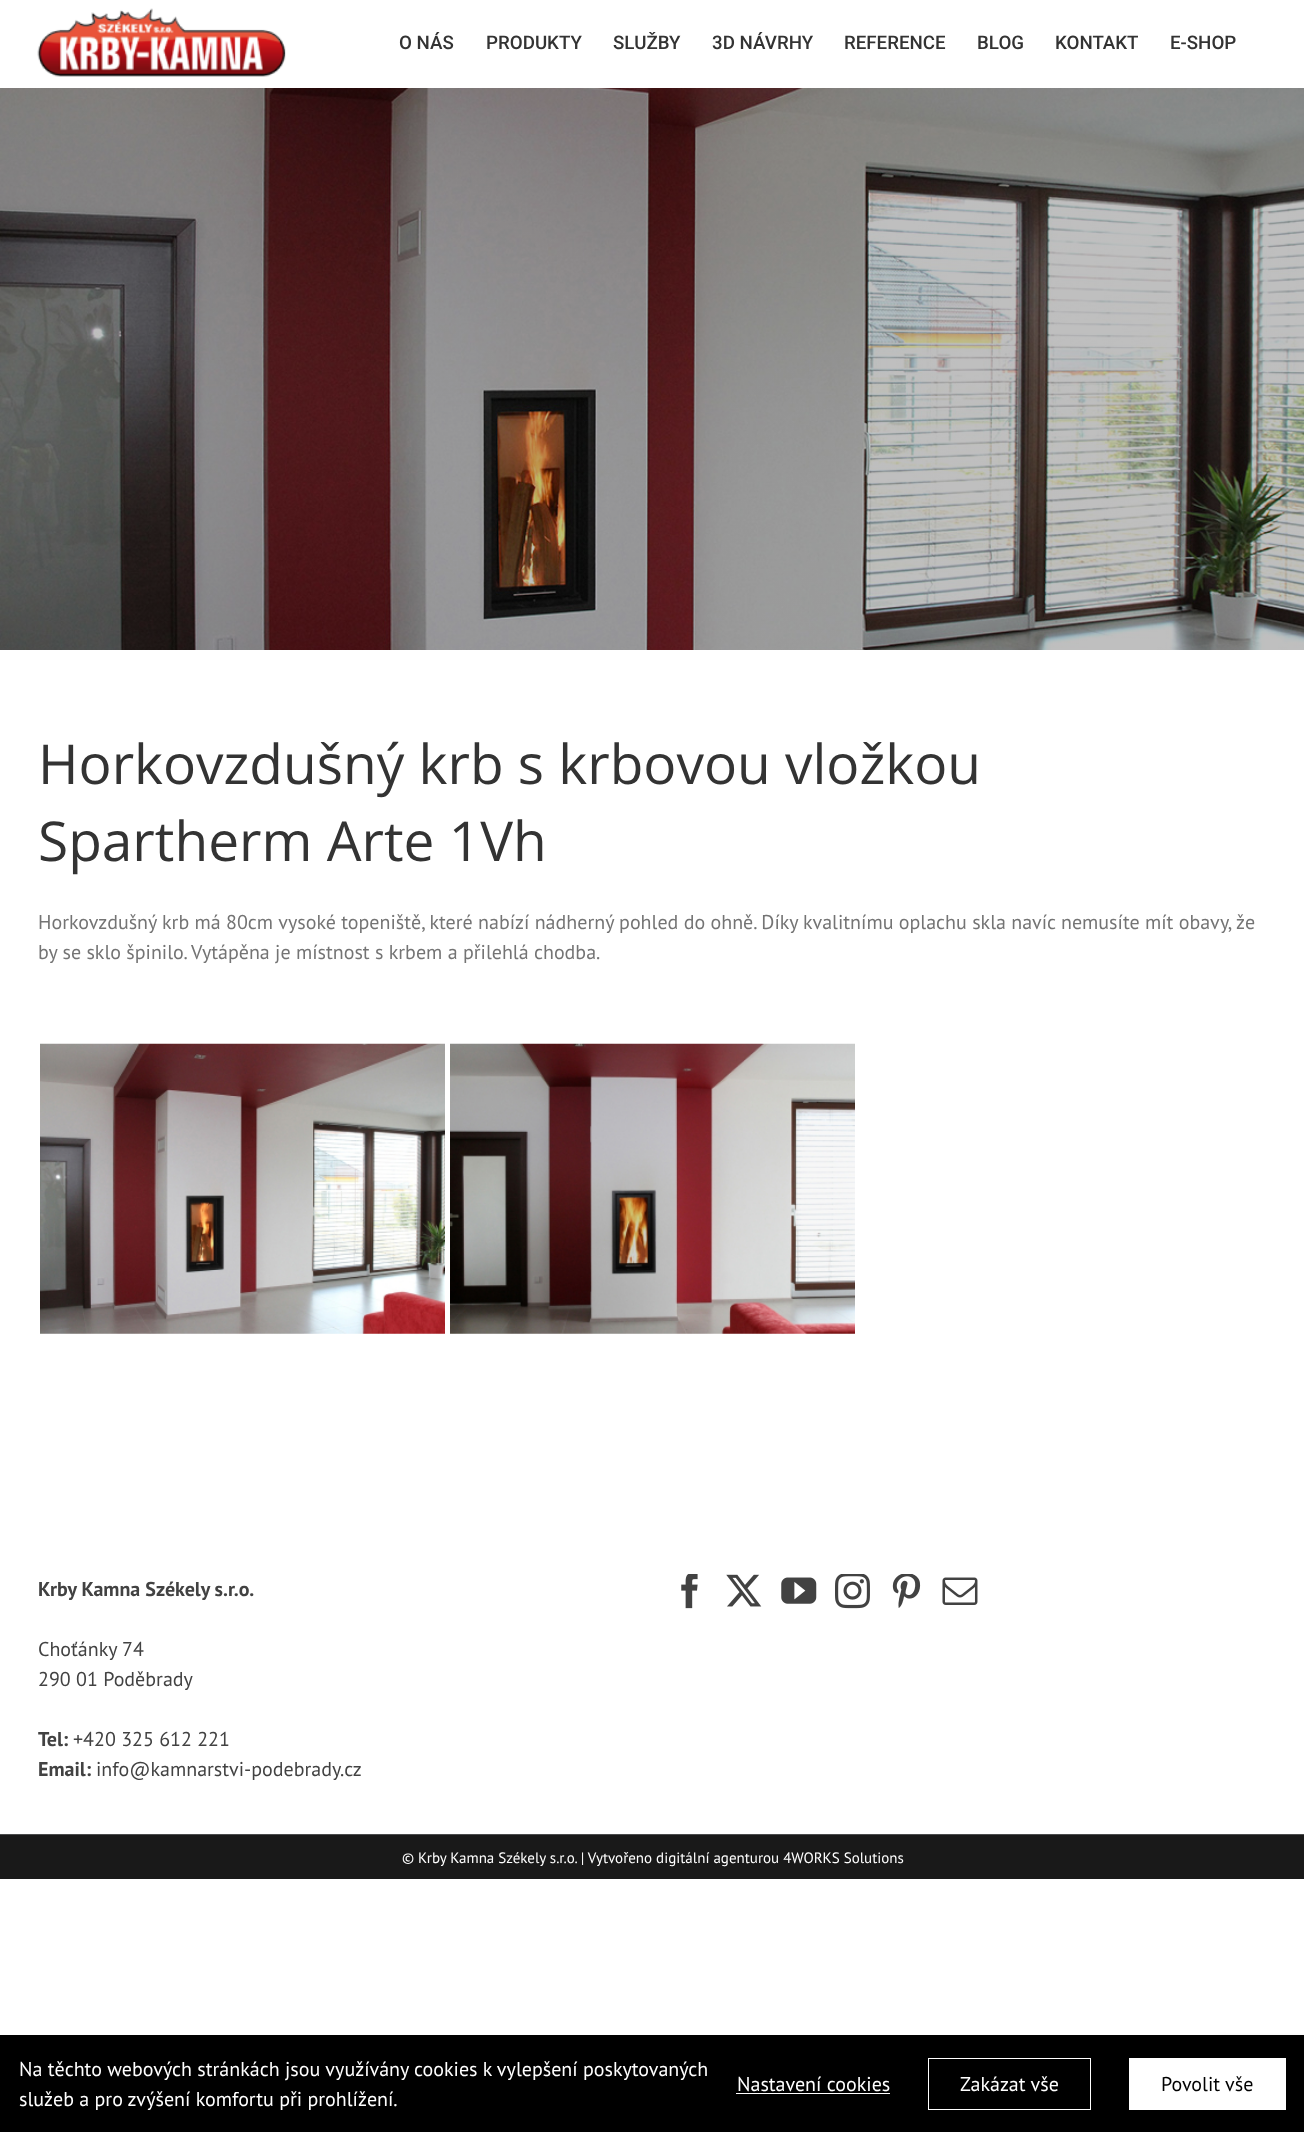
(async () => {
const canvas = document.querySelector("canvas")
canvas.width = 1304
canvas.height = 2132
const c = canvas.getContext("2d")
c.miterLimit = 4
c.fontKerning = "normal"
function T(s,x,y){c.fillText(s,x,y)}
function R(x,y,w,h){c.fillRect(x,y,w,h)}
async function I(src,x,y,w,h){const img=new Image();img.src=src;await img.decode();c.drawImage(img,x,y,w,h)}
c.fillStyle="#fff"
R(0,0,1304,2132)
await I("1.png",37,8,249,69)
c.font="500 18.75px Roboto"
c.fillStyle="#333"
T("O NÁS",399,49)
T("PRODUKTY",486,49)
T("SLUŽBY",613,49)
T("3D NÁVRHY",712,49)
T("REFERENCE",844,49)
T("BLOG",977,49)
T("KONTAKT",1055,49)
T("E-SHOP",1170,49)
await I("2.png",0,88,1304,562)
c.font="55px Open Sans"
T("Horkovzdušný krb s krbovou vložkou",38,784)
T("Spartherm Arte 1Vh",38,861)
c.font="20px PT Sans"
c.fillStyle="#747474"
T("Horkovzdušný krb má 80cm vysoké topeniště, které nabízí nádherný pohled do ohně. Díky kvalitnímu oplachu skla navíc nemusíte mít obavy, že",38,929)
T("by se sklo špinilo. Vytápěna je místnost s krbem a přilehlá chodba.",38,959)
await I("3.png",40,1043,405,291)
await I("4.png",450,1043,405,291)
c.font="bold 20px PT Sans"
c.fillStyle="#424242"
T("Krby Kamna Székely s.r.o.",38,1596)
c.font="20px PT Sans"
T("Choťánky 74",38,1656)
T("290 01 Poděbrady",38,1686)
c.font="bold 20px PT Sans"
T("Tel:",38,1746)
c.font="20px PT Sans"
T("+420 325 612 221",73,1746)
c.font="bold 20px PT Sans"
T("Email:",38,1776)
c.font="20px PT Sans"
T("info@kamnarstvi-podebrady.cz",96,1776)
await I("5.png",681,1574,17,35)
await I("6.png",726,1574,36,33)
await I("7.png",781,1577,36,27)
await I("8.png",835,1574,35,35)
await I("9.png",892,1574,29,34)
await I("10.png",942,1577,36,28)
c.fillStyle="#191919"
R(0,1835,1304,44)
c.fillStyle="#4b4c4d"
R(0,1834,1304,1)
c.font="15px PT Sans"
c.fillStyle="#fff"
T("© Krby Kamna Székely s.r.o. | Vytvořeno digitální agenturou 4WORKS Solutions",402,1863)
c.fillStyle="#808080"
c.filter="blur(3px)"
c.beginPath()
c.roundRect(1218,2040,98,75,2.5)
c.fill()
c.filter="none"
c.fillStyle="#000"
R(0,2035,1304,97)
c.font="20px PT Sans"
c.fillStyle="#fff"
T("Na těchto webových stránkách jsou využívány cookies k vylepšení poskytovaných",19,2076)
T("služeb a pro zvýšení komfortu při prohlížení.",19,2106)
T("Nastavení cookies",737,2091)
R(736,2093,154,1)
c.strokeStyle="#fff"
c.strokeRect(928.5,2058.5,162,51)
T("Zakázat vše",960,2091)
R(1129,2058,157,52)
c.fillStyle="#000"
T("Povolit vše",1161,2091)
})()
